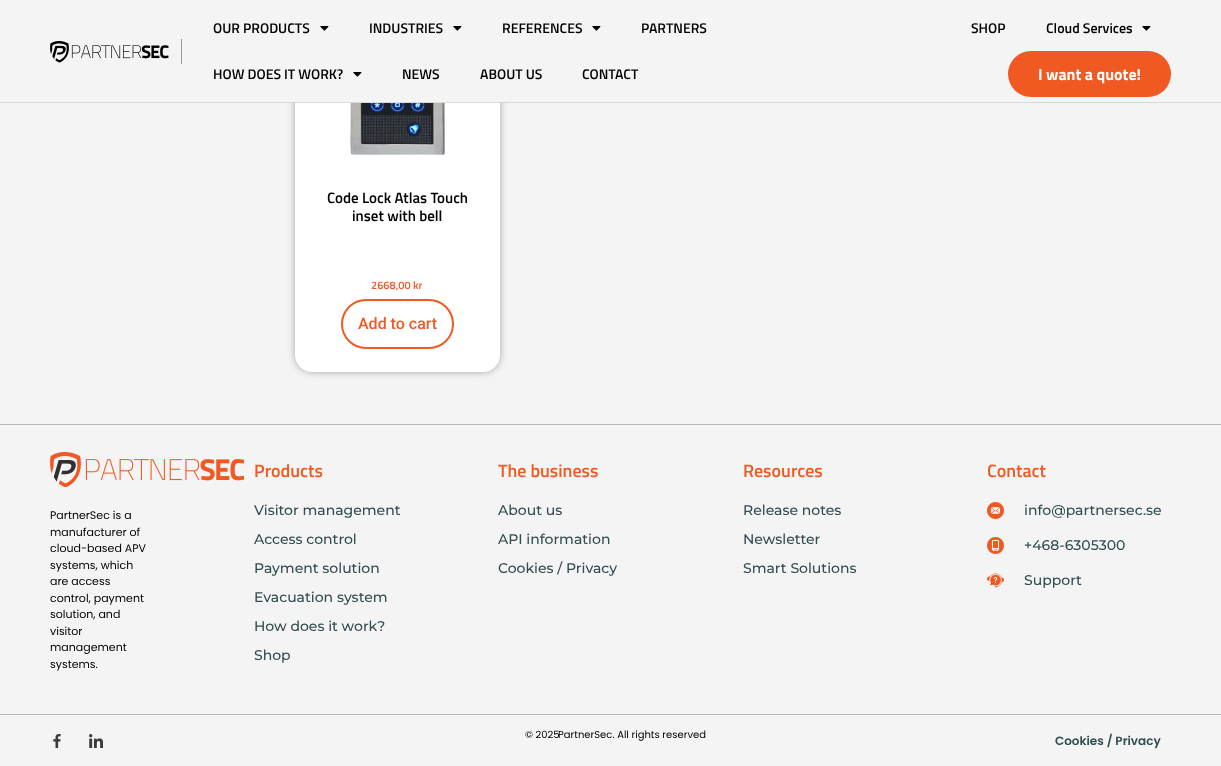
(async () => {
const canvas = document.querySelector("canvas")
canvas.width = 1221
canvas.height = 766
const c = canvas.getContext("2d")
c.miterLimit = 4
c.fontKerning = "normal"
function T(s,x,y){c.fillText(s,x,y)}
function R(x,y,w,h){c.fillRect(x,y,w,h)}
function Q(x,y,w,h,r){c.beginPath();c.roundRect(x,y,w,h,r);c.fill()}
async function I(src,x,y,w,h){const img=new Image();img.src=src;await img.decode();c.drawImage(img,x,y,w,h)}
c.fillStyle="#f4f4f4"
R(0,0,1221,766)
c.fillStyle="#00000080"
c.filter="blur(5px)"
c.beginPath()
c.roundRect(297,-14,201,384,15)
c.fill()
c.filter="none"
c.fillStyle="#fff"
Q(295,-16,205,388,17)
c.fillStyle="#f4f4f4"
R(287,0,221,102)
c.fillStyle="#d8d8d8"
R(0,102,1221,1)
await I("1.png",50,41,119,22)
c.fillStyle="#989898"
R(181,39,1,25)
c.font="600 14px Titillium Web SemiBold"
c.fillStyle="#000"
T("OUR PRODUCTS",213,33)
await I("2.png",320,26,9,5)
T("INDUSTRIES",369,33)
await I("2.png",453,26,9,5)
T("REFERENCES",502,33)
await I("2.png",592,26,9,5)
T("PARTNERS",641,33)
T("HOW DOES IT WORK?",213,79)
await I("2.png",353,72,9,5)
T("NEWS",402,79)
T("ABOUT US",480,79)
T("CONTACT",582,79)
T("SHOP",971,33)
T("Cloud Services",1046,33)
await I("2.png",1142,26,9,5)
c.fillStyle="#f15922"
Q(1008,51,163,46,23)
c.font="bold 16px Titillium Web"
c.fillStyle="#fff"
T("I want a quote!",1038,80)
await I("3.png",348,103,97,53)
c.font="600 15px Titillium Web SemiBold"
c.fillStyle="#000"
T("Code Lock Atlas Touch",327,203)
T("inset with bell",352,221)
c.font="600 11px Titillium Web SemiBold"
c.fillStyle="#f15922"
T("2668,00 kr",371,289)
c.beginPath()
c.roundRect(342,300,111,48,24)
c.strokeStyle="#f15922"
c.lineWidth=2
c.stroke()
c.font="500 16px Roboto"
T("Add to cart",358,329)
c.fillStyle="#b8b8b8"
R(0,424,1221,1)
await I("4.png",50,452,194,35)
c.font="11px Poppins"
c.fillStyle="#000"
T("PartnerSec is a",50,519)
T("manufacturer of",50,536)
T("cloud-based APV",50,552)
T("systems, which",50,569)
T("are access",50,585)
T("control, payment",50,602)
T("solution, and",50,618)
T("visitor",50,635)
T("management",50,651)
T("systems.",50,668)
c.font="600 18px Titillium Web SemiBold"
c.fillStyle="#f15922"
T("Products",254,477)
c.font="500 14px Montserrat"
c.fillStyle="#314d50"
T("Visitor management",254,515)
T("Access control",254,544)
T("Payment solution",254,573)
T("Evacuation system",254,602)
T("How does it work?",254,631)
T("Shop",254,660)
c.font="600 18px Titillium Web SemiBold"
c.fillStyle="#f15922"
T("The business",498,477)
c.font="500 14px Montserrat"
c.fillStyle="#314d50"
T("About us",498,515)
T("API information",498,544)
T("Cookies / Privacy",498,573)
c.font="600 18px Titillium Web SemiBold"
c.fillStyle="#f15922"
T("Resources",743,477)
c.font="500 14px Montserrat"
c.fillStyle="#314d50"
T("Release notes",743,515)
T("Newsletter",743,544)
T("Smart Solutions",743,573)
c.font="600 18px Titillium Web SemiBold"
c.fillStyle="#f15922"
T("Contact",987,477)
await I("5.png",987,502,17,17)
c.font="500 14px Montserrat"
c.fillStyle="#314d50"
T("info@partnersec.se",1024,515)
await I("6.png",987,537,17,17)
T("+468-6305300",1024,550)
await I("7.png",987,573,17,15)
T("Support",1024,585)
c.fillStyle="#b8b8b8"
R(0,714,1221,1)
await I("8.png",53,734,8,14)
await I("9.png",89,734,14,14)
c.font="10px Poppins"
c.fillStyle="#000"
T("© 2025",525,738)
T("PartnerSec. All rights reserved",558,738)
c.font="600 12px Poppins"
c.fillStyle="#314d50"
T("Cookies / Privacy",1055,745)
})()
